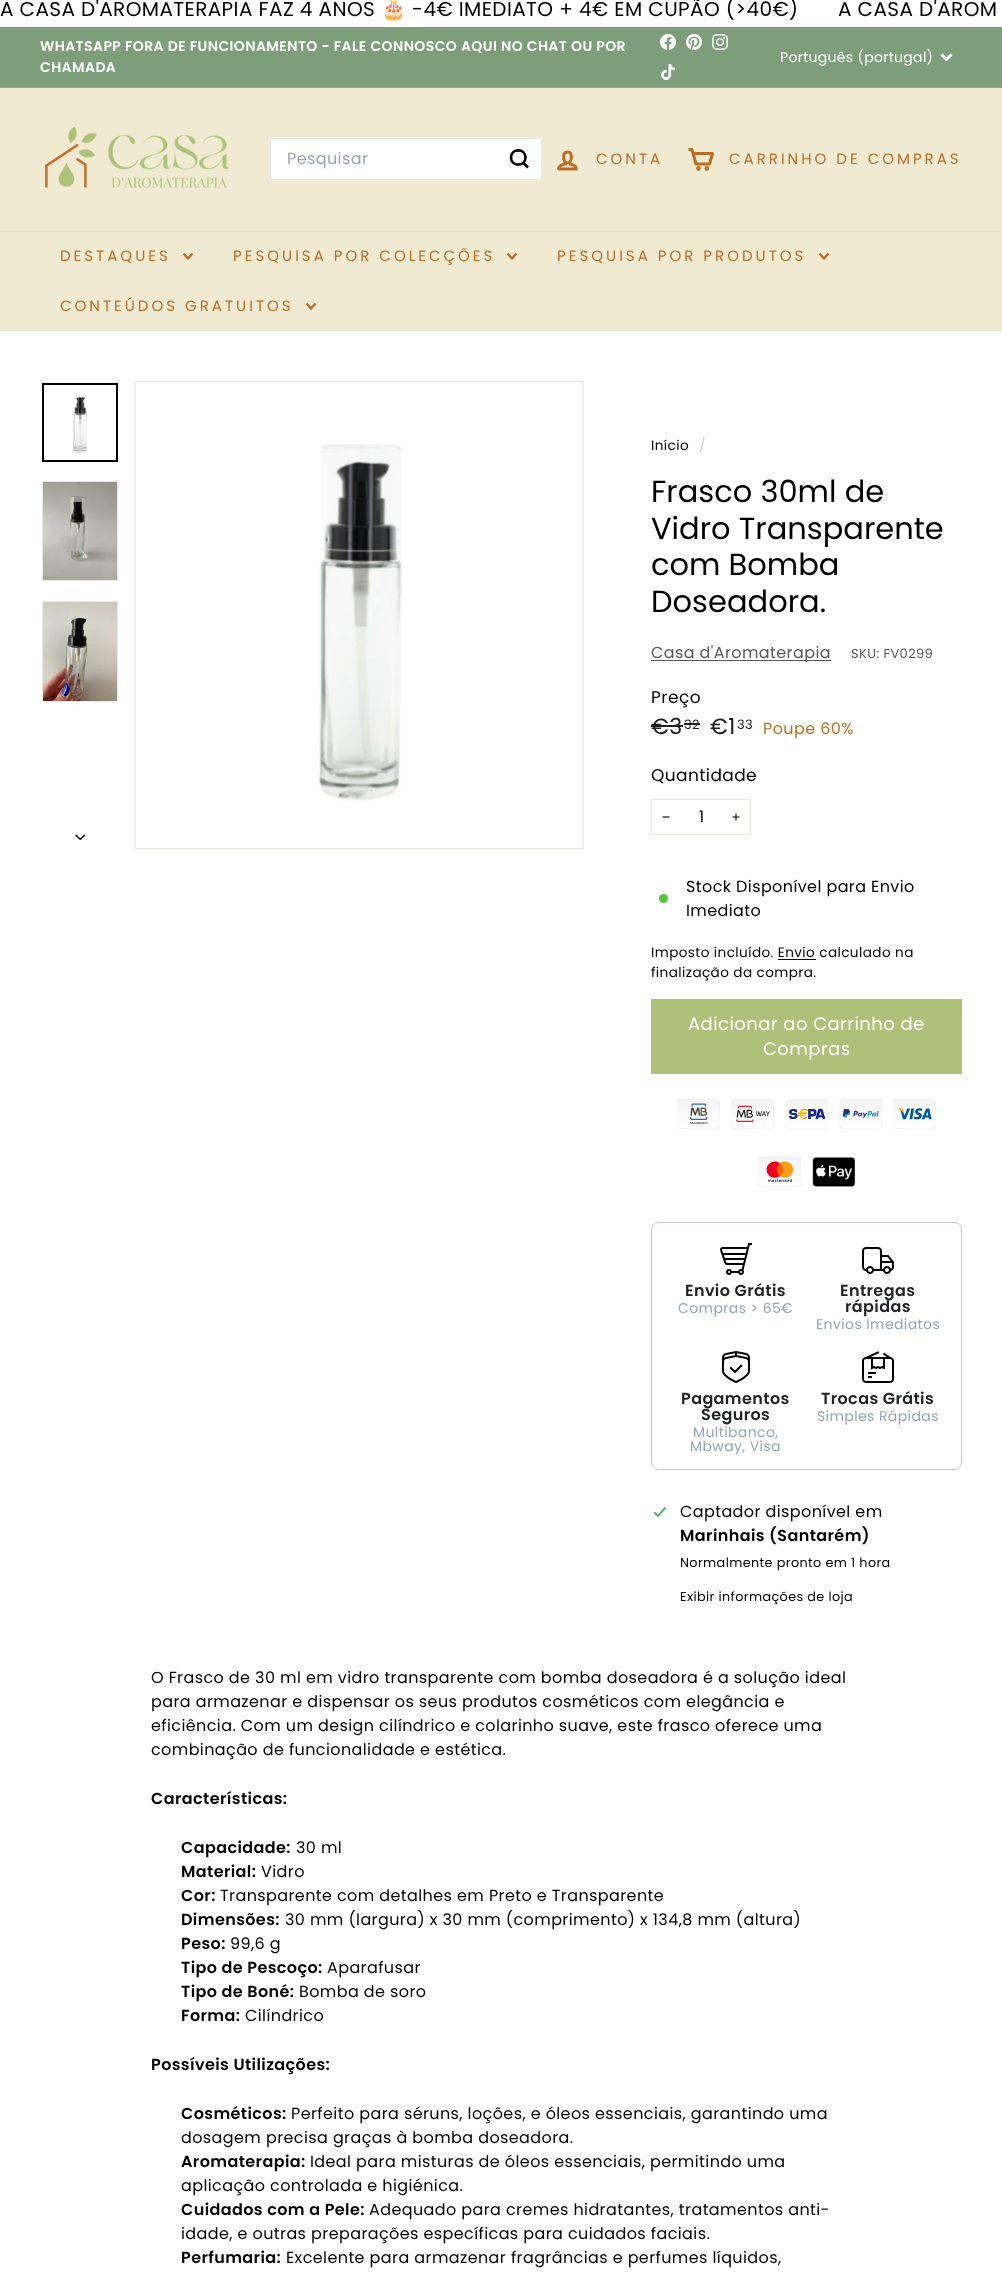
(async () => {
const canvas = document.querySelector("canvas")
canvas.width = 1002
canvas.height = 2278
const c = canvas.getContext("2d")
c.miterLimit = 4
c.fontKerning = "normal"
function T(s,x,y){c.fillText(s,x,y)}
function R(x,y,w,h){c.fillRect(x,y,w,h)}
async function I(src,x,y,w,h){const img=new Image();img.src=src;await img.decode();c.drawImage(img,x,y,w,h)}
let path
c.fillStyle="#fff"
R(0,0,1002,2278)
c.letterSpacing="0.4px"
c.font="20px Poppins"
c.fillStyle="#000"
T("A CASA D'AROMATERAPIA FAZ 4 ANOS",0,16)
c.font="20px Noto Color Emoji"
T("🎂",381,16)
c.font="20px Poppins"
T("-4€ IMEDIATO + 4€ EM CUPÃO (>40€)",412,16)
T("A CASA D'AROM",838,16)
c.fillStyle="#7e9e7b"
R(0,27,1002,60)
c.font="600 14px Poppins"
c.fillStyle="#fff"
T("WHATSAPP FORA DE FUNCIONAMENTO - FALE CONNOSCO AQUI NO CHAT OU POR",40,51)
T("CHAMADA",40,72)
await I("1.png",660,34,16,16)
await I("2.png",686,34,16,16)
await I("3.png",712,34,16,16)
await I("4.png",661,64,14,16)
c.letterSpacing="0.3px"
c.font="14px Poppins"
T("Português (portugal)",780,62)
path = new Path2D("M941.5 54.5l5 5l5-5")
c.strokeStyle="#fff"
c.lineWidth=2.8
c.lineJoin="round"
c.stroke(path)
c.fillStyle="#91ad8f"
R(0,87,1002,1)
c.fillStyle="#f1ead2"
R(0,88,1002,143)
await I("5.png",45,126,186,62)
c.fillStyle="#fff"
c.beginPath()
c.rect(270.5,138.5,271,41)
c.fill()
c.strokeStyle="#e8e8e1"
c.lineWidth=1
c.lineJoin="miter"
c.stroke()
c.letterSpacing="0.4px"
c.font="16px Poppins"
c.fillStyle="#9ca3af"
T("Pesquisar",287,164)
path = new Path2D("M525.5 157.5c0 9.5-14.5 9.5-14.5 0c0-9.5 14.5-9.5 14.5 0m2.5 10l-4.5-4.5")
c.strokeStyle="#000"
c.lineWidth=2.7
c.lineJoin="round"
c.stroke(path)
await I("6.png",557,150,21,21)
c.letterSpacing="3px"
c.font="15px Poppins"
c.fillStyle="#bc6d24"
T("CONTA",596,164)
path = new Path2D("M693 153.5h19.5l-3 10.5h-13.5l-4-14.5h-3.5")
c.strokeStyle="#bc6d24"
c.lineWidth=3
c.stroke(path)
c.beginPath()
c.arc(698.4,168.4,.8,0,7)
c.fill()
c.stroke()
c.beginPath()
c.arc(706.8,168.4,.8,0,7)
c.fill()
c.stroke()
T("CARRINHO DE COMPRAS",729,164)
c.fillStyle="#f1ead2"
R(0,232,1002,99)
c.fillStyle="#ecddc1"
R(0,231,1002,1)
c.fillStyle="#bc6d24"
T("DESTAQUES",60,261)
path = new Path2D("M183.5 253.5l4.5 5l4.5-5")
c.lineWidth=2.5
c.stroke(path)
T("PESQUISA POR COLECÇÕES",233,261)
path = new Path2D("M507.5 253.5l4.5 5l4.5-5")
c.stroke(path)
T("PESQUISA POR PRODUTOS",557,261)
path = new Path2D("M819.5 253.5l4.5 5l4.5-5")
c.stroke(path)
T("CONTEÚDOS GRATUITOS",60,311)
path = new Path2D("M306.5 303.5l4.5 5l4.5-5")
c.stroke(path)
await I("7.png",73,394,15,59)
c.strokeStyle="#000"
c.lineWidth=2
c.lineJoin="miter"
c.strokeRect(43,384,74,77)
c.strokeStyle="#e8e8e1"
c.lineWidth=1
c.strokeRect(42.5,481.5,75,99)
await I("8.png",43,482,74,98)
c.strokeRect(42.5,601.5,75,100)
await I("9.png",43,602,74,99)
await I("10.png",75,834,10,6)
c.strokeRect(135.5,381.5,448,467)
await I("11.png",318,444,85,357)
c.letterSpacing="0.4px"
c.font="13.6px Poppins"
c.fillStyle="#000"
T("Início",651,450)
c.fillStyle="#ccc"
T("/",699,450)
c.letterSpacing="0px"
c.font="30.5px Poppins"
c.fillStyle="#000"
T("Frasco 30ml de",651,502)
T("Vidro Transparente",651,539)
T("com Bomba",651,575)
T("Doseadora.",651,612)
c.fillStyle="#595959"
R(651,660,180,1)
c.letterSpacing="0.4px"
c.font="16px Poppins"
T("Casa d'Aromaterapia",651,658)
c.font="13px Poppins"
T("SKU: FV0299",851,658)
c.font="17px Poppins"
c.fillStyle="#000"
T("Preço",651,703)
c.font="22px Poppins"
c.fillStyle="#1c1d1d"
T("€3",651,734)
R(651,725,32,2)
c.font="13px Poppins"
T("32",684,729)
R(684,723,16,2)
c.font="22px Poppins"
T("€1",710,734)
c.font="13px Poppins"
T("33",737,729)
c.font="16px Poppins"
c.fillStyle="#bc6d24"
T("Poupe 60%",763,734)
c.font="17px Poppins"
c.fillStyle="#000"
T("Quantidade",651,781)
c.strokeRect(651.5,799.5,99,35)
path = new Path2D("M669.5 817h-7")
c.strokeStyle="#000"
c.lineWidth=1.1
c.lineJoin="round"
c.stroke(path)
c.font="16px Poppins"
T("1",699,822)
path = new Path2D("M736 813.5v7m3.5-3.5h-7")
c.stroke(path)
c.fillStyle="#54c63a"
c.beginPath()
c.arc(663.5,898.5,4.5,0,7)
c.fill()
c.fillStyle="#000"
T("Stock Disponível para Envio",686,892)
T("Imediato",686,916)
c.font="13.6px Poppins"
T("Imposto incluído. Envio calculado na",651,957)
R(778,959,38,1)
T("finalização da compra.",651,977)
c.fillStyle="#aec178"
R(651,999,311,75)
c.letterSpacing="0.45px"
c.font="18px Poppins"
c.fillStyle="#fff"
T("Adicionar ao Carrinho de",688,1030)
T("Compras",763,1055)
await I("12.png",677,1098,259,90)
c.beginPath()
c.roundRect(651.5,1222.5,310,247,7.5)
c.strokeStyle="#c5c8d1"
c.lineWidth=1
c.lineJoin="miter"
c.stroke()
await I("13.png",720,1243,32,32)
c.letterSpacing="0.4px"
c.font="600 16px Poppins"
c.fillStyle="#202223"
T("Envio Grátis",685,1296)
c.font="14px Poppins"
c.fillStyle="#96a4b6"
T("Compras > 65€",678,1313)
await I("14.png",862,1247,32,27)
c.font="600 16px Poppins"
c.fillStyle="#202223"
T("Entregas",840,1296)
T("rápidas",845,1312)
c.font="14px Poppins"
c.fillStyle="#96a4b6"
T("Envios Imediatos",816,1329)
await I("15.png",722,1351,28,32)
c.font="600 16px Poppins"
c.fillStyle="#202223"
T("Pagamentos",681,1404)
T("Seguros",701,1420)
c.font="14px Poppins"
c.fillStyle="#96a4b6"
T("Multibanco,",693,1437)
T("Mbway, Visa",690,1451)
await I("16.png",862,1351,32,32)
c.font="600 16px Poppins"
c.fillStyle="#202223"
T("Trocas Grátis",821,1404)
c.font="14px Poppins"
c.fillStyle="#96a4b6"
T("Simples Rápidas",817,1421)
await I("17.png",654,1507,12,10)
c.font="16px Poppins"
c.fillStyle="#000"
T("Captador disponível em",680,1517)
c.font="600 16px Poppins"
T("Marinhais (Santarém)",680,1541)
c.font="12.75px Poppins"
T("Normalmente pronto em 1 hora",680,1567)
T("Exibir informações de loja",680,1601)
c.font="16px Poppins"
T("O Frasco de 30 ml em vidro transparente com bomba doseadora é a solução ideal",151,1683)
T("para armazenar e dispensar os seus produtos cosméticos com elegância e",151,1707)
T("eficiência. Com um design cilíndrico e colarinho suave, este frasco oferece uma",151,1731)
T("combinação de funcionalidade e estética.",151,1755)
c.font="600 16px Poppins"
T("Características:",151,1804)
T("Capacidade:",181,1853)
c.font="16px Poppins"
T("30 ml",296,1853)
c.font="600 16px Poppins"
T("Material:",181,1877)
c.font="16px Poppins"
T("Vidro",261,1877)
c.font="600 16px Poppins"
T("Cor:",181,1901)
c.font="16px Poppins"
T("Transparente com detalhes em Preto e Transparente",220,1901)
c.font="600 16px Poppins"
T("Dimensões:",181,1925)
c.font="16px Poppins"
T("30 mm (largura) x 30 mm (comprimento) x 134,8 mm (altura)",285,1925)
c.font="600 16px Poppins"
T("Peso:",181,1949)
c.font="16px Poppins"
T("99,6 g",230,1949)
c.font="600 16px Poppins"
T("Tipo de Pescoço:",181,1973)
c.font="16px Poppins"
T("Aparafusar",327,1973)
c.font="600 16px Poppins"
T("Tipo de Boné:",181,1997)
c.font="16px Poppins"
T("Bomba de soro",299,1997)
c.font="600 16px Poppins"
T("Forma:",181,2021)
c.font="16px Poppins"
T("Cilíndrico",245,2021)
c.font="600 16px Poppins"
T("Possíveis Utilizações:",151,2070)
T("Cosméticos:",181,2119)
c.font="16px Poppins"
T("Perfeito para séruns, loções, e óleos essenciais, garantindo uma",291,2119)
T("dosagem precisa graças à bomba doseadora.",181,2143)
c.font="600 16px Poppins"
T("Aromaterapia:",181,2167)
c.font="16px Poppins"
T("Ideal para misturas de óleos essenciais, permitindo uma",310,2167)
T("aplicação controlada e higiénica.",181,2191)
c.font="600 16px Poppins"
T("Cuidados com a Pele:",181,2215)
c.font="16px Poppins"
T("Adequado para cremes hidratantes, tratamentos anti-",369,2215)
T("idade, e outras preparações específicas para cuidados faciais.",181,2239)
c.font="600 16px Poppins"
T("Perfumaria:",181,2263)
c.font="16px Poppins"
T("Excelente para armazenar fragrâncias e perfumes líquidos,",286,2263)
})()
